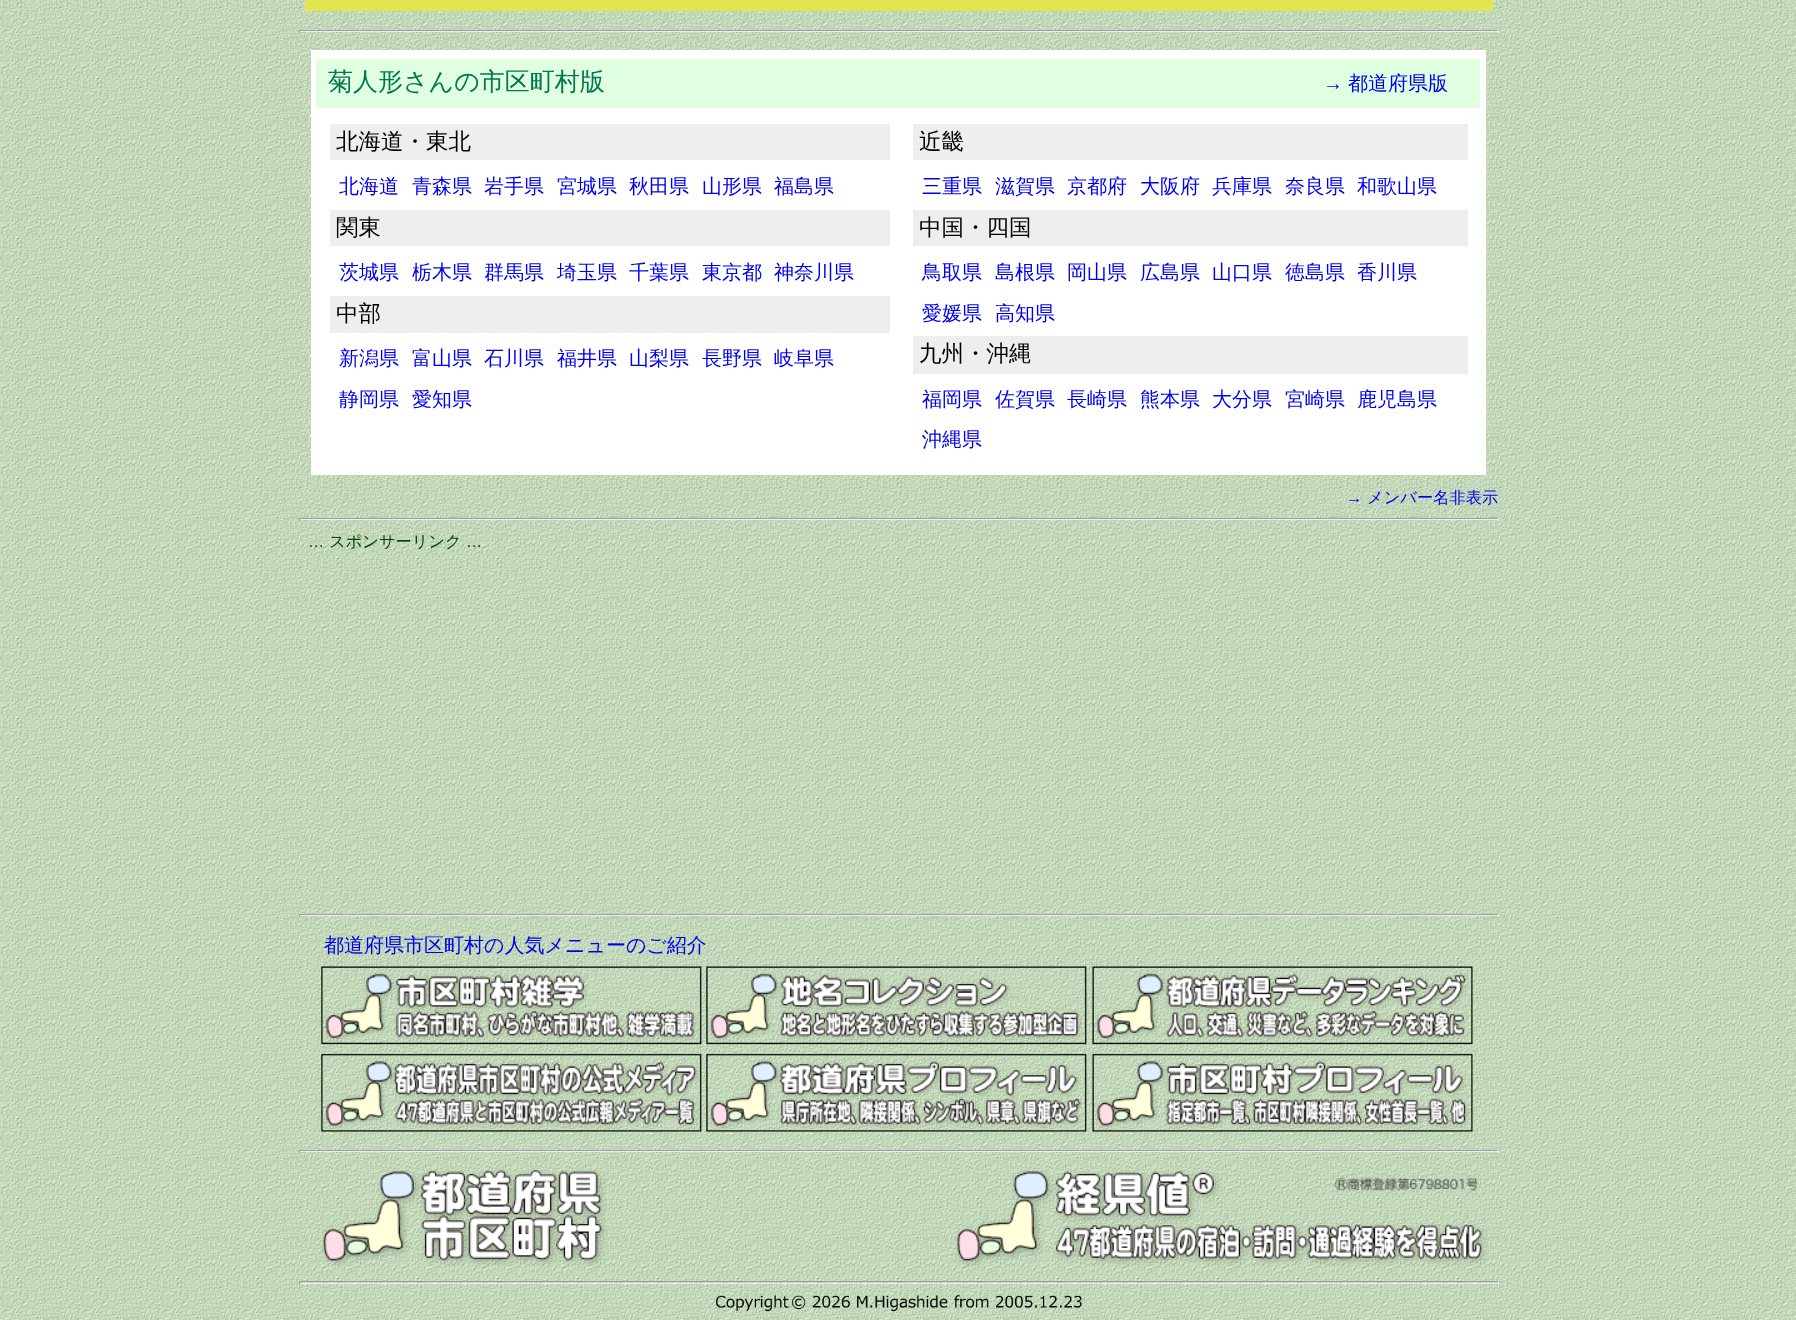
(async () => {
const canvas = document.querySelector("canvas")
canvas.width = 1796
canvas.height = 1320
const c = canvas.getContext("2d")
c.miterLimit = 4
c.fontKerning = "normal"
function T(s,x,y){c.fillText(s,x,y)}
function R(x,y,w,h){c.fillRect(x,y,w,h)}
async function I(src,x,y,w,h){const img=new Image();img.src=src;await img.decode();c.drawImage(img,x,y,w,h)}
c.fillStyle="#fff"
R(0,0,1796,1320)
await I("1.png",0,0,1796,1320)
c.fillStyle="#e1e54e"
R(305,0,1188,11)
c.fillStyle="#9f9f9f"
R(299,30,1200,1)
c.fillStyle="#eee"
R(1498,30,1,3)
R(299,31,1200,1)
c.fillStyle="#9f9f9f"
R(299,30,1,3)
c.fillStyle="#fff"
R(311,50,1175,425)
c.fillStyle="#e0ffe0"
R(316,59,1164,49)
c.font="500 25px WenQuanYi Zen Hei"
c.fillStyle="#007750"
T("菊人形さんの市区町村版",328,90)
c.font="20px Liberation Sans"
c.fillStyle="#00e"
T("→",1323,90)
c.font="500 20px WenQuanYi Zen Hei"
T("都道府県版",1348,90)
c.fillStyle="#eee"
R(330,124,560,36)
c.font="500 22.5px WenQuanYi Zen Hei"
c.fillStyle="#000"
T("北海道・東北",336,149)
c.font="500 20px WenQuanYi Zen Hei"
c.fillStyle="#00e"
T("北海道",339,193)
T("青森県",412,193)
T("岩手県",484,193)
T("宮城県",557,193)
T("秋田県",629,193)
T("山形県",702,193)
T("福島県",774,193)
c.fillStyle="#eee"
R(330,210,560,36)
c.font="500 22.5px WenQuanYi Zen Hei"
c.fillStyle="#000"
T("関東",336,235)
c.font="500 20px WenQuanYi Zen Hei"
c.fillStyle="#00e"
T("茨城県",339,279)
T("栃木県",412,279)
T("群馬県",484,279)
T("埼玉県",557,279)
T("千葉県",629,279)
T("東京都",702,279)
T("神奈川県",774,279)
c.fillStyle="#eee"
R(330,296,560,37)
c.font="500 22.5px WenQuanYi Zen Hei"
c.fillStyle="#000"
T("中部",336,321)
c.font="500 20px WenQuanYi Zen Hei"
c.fillStyle="#00e"
T("新潟県",339,365)
T("富山県",412,365)
T("石川県",484,365)
T("福井県",557,365)
T("山梨県",629,365)
T("長野県",702,365)
T("岐阜県",774,365)
T("静岡県",339,406)
T("愛知県",412,406)
c.fillStyle="#eee"
R(913,124,555,36)
c.font="500 22.5px WenQuanYi Zen Hei"
c.fillStyle="#000"
T("近畿",919,149)
c.font="500 20px WenQuanYi Zen Hei"
c.fillStyle="#00e"
T("三重県",922,193)
T("滋賀県",995,193)
T("京都府",1067,193)
T("大阪府",1140,193)
T("兵庫県",1212,193)
T("奈良県",1285,193)
T("和歌山県",1357,193)
c.fillStyle="#eee"
R(913,210,555,36)
c.font="500 22.5px WenQuanYi Zen Hei"
c.fillStyle="#000"
T("中国・四国",919,235)
c.font="500 20px WenQuanYi Zen Hei"
c.fillStyle="#00e"
T("鳥取県",922,279)
T("島根県",995,279)
T("岡山県",1067,279)
T("広島県",1140,279)
T("山口県",1212,279)
T("徳島県",1285,279)
T("香川県",1357,279)
T("愛媛県",922,320)
T("高知県",995,320)
c.fillStyle="#eee"
R(913,336,555,38)
c.font="500 22.5px WenQuanYi Zen Hei"
c.fillStyle="#000"
T("九州・沖縄",919,361)
c.font="500 20px WenQuanYi Zen Hei"
c.fillStyle="#00e"
T("福岡県",922,406)
T("佐賀県",995,406)
T("長崎県",1067,406)
T("熊本県",1140,406)
T("大分県",1212,406)
T("宮崎県",1285,406)
T("鹿児島県",1357,406)
T("沖縄県",922,446)
c.font="16.25px Liberation Sans"
T("→",1346,503)
c.font="500 16.25px WenQuanYi Zen Hei"
T("メンバー名非表示",1367,503)
c.fillStyle="#9f9f9f"
R(299,518,1200,1)
c.fillStyle="#eee"
R(1498,518,1,3)
R(299,519,1200,1)
c.fillStyle="#9f9f9f"
R(299,518,1,3)
c.font="16.25px Liberation Sans"
c.fillStyle="#040"
T("…",308,547)
c.font="500 16.25px WenQuanYi Zen Hei"
T("スポンサーリンク",329,547)
c.font="16.25px Liberation Sans"
T("…",466,547)
c.fillStyle="#9f9f9f"
R(299,914,1200,1)
c.fillStyle="#eee"
R(1498,914,1,3)
R(299,915,1200,1)
c.fillStyle="#9f9f9f"
R(299,914,1,3)
c.font="500 20px WenQuanYi Zen Hei"
c.fillStyle="#00e"
T("都道府県市区町村の人気メニューのご紹介",324,952)
await I("2.png",321,966,381,79)
await I("3.png",706,966,381,79)
await I("4.png",1092,966,381,79)
await I("5.png",321,1053,381,79)
await I("6.png",706,1053,381,79)
await I("7.png",1092,1053,381,79)
c.fillStyle="#9f9f9f"
R(299,1150,1200,1)
c.fillStyle="#eee"
R(1498,1150,1,3)
R(299,1151,1200,1)
c.fillStyle="#9f9f9f"
R(299,1150,1,3)
await I("8.png",322,1170,285,96)
await I("9.png",956,1170,531,96)
R(299,1281,1200,1)
c.fillStyle="#eee"
R(1498,1281,1,3)
R(299,1283,1200,1)
c.fillStyle="#9f9f9f"
R(299,1281,1,3)
await I("10.png",716,1295,232,17)
await I("11.png",954,1295,128,13)
})()
